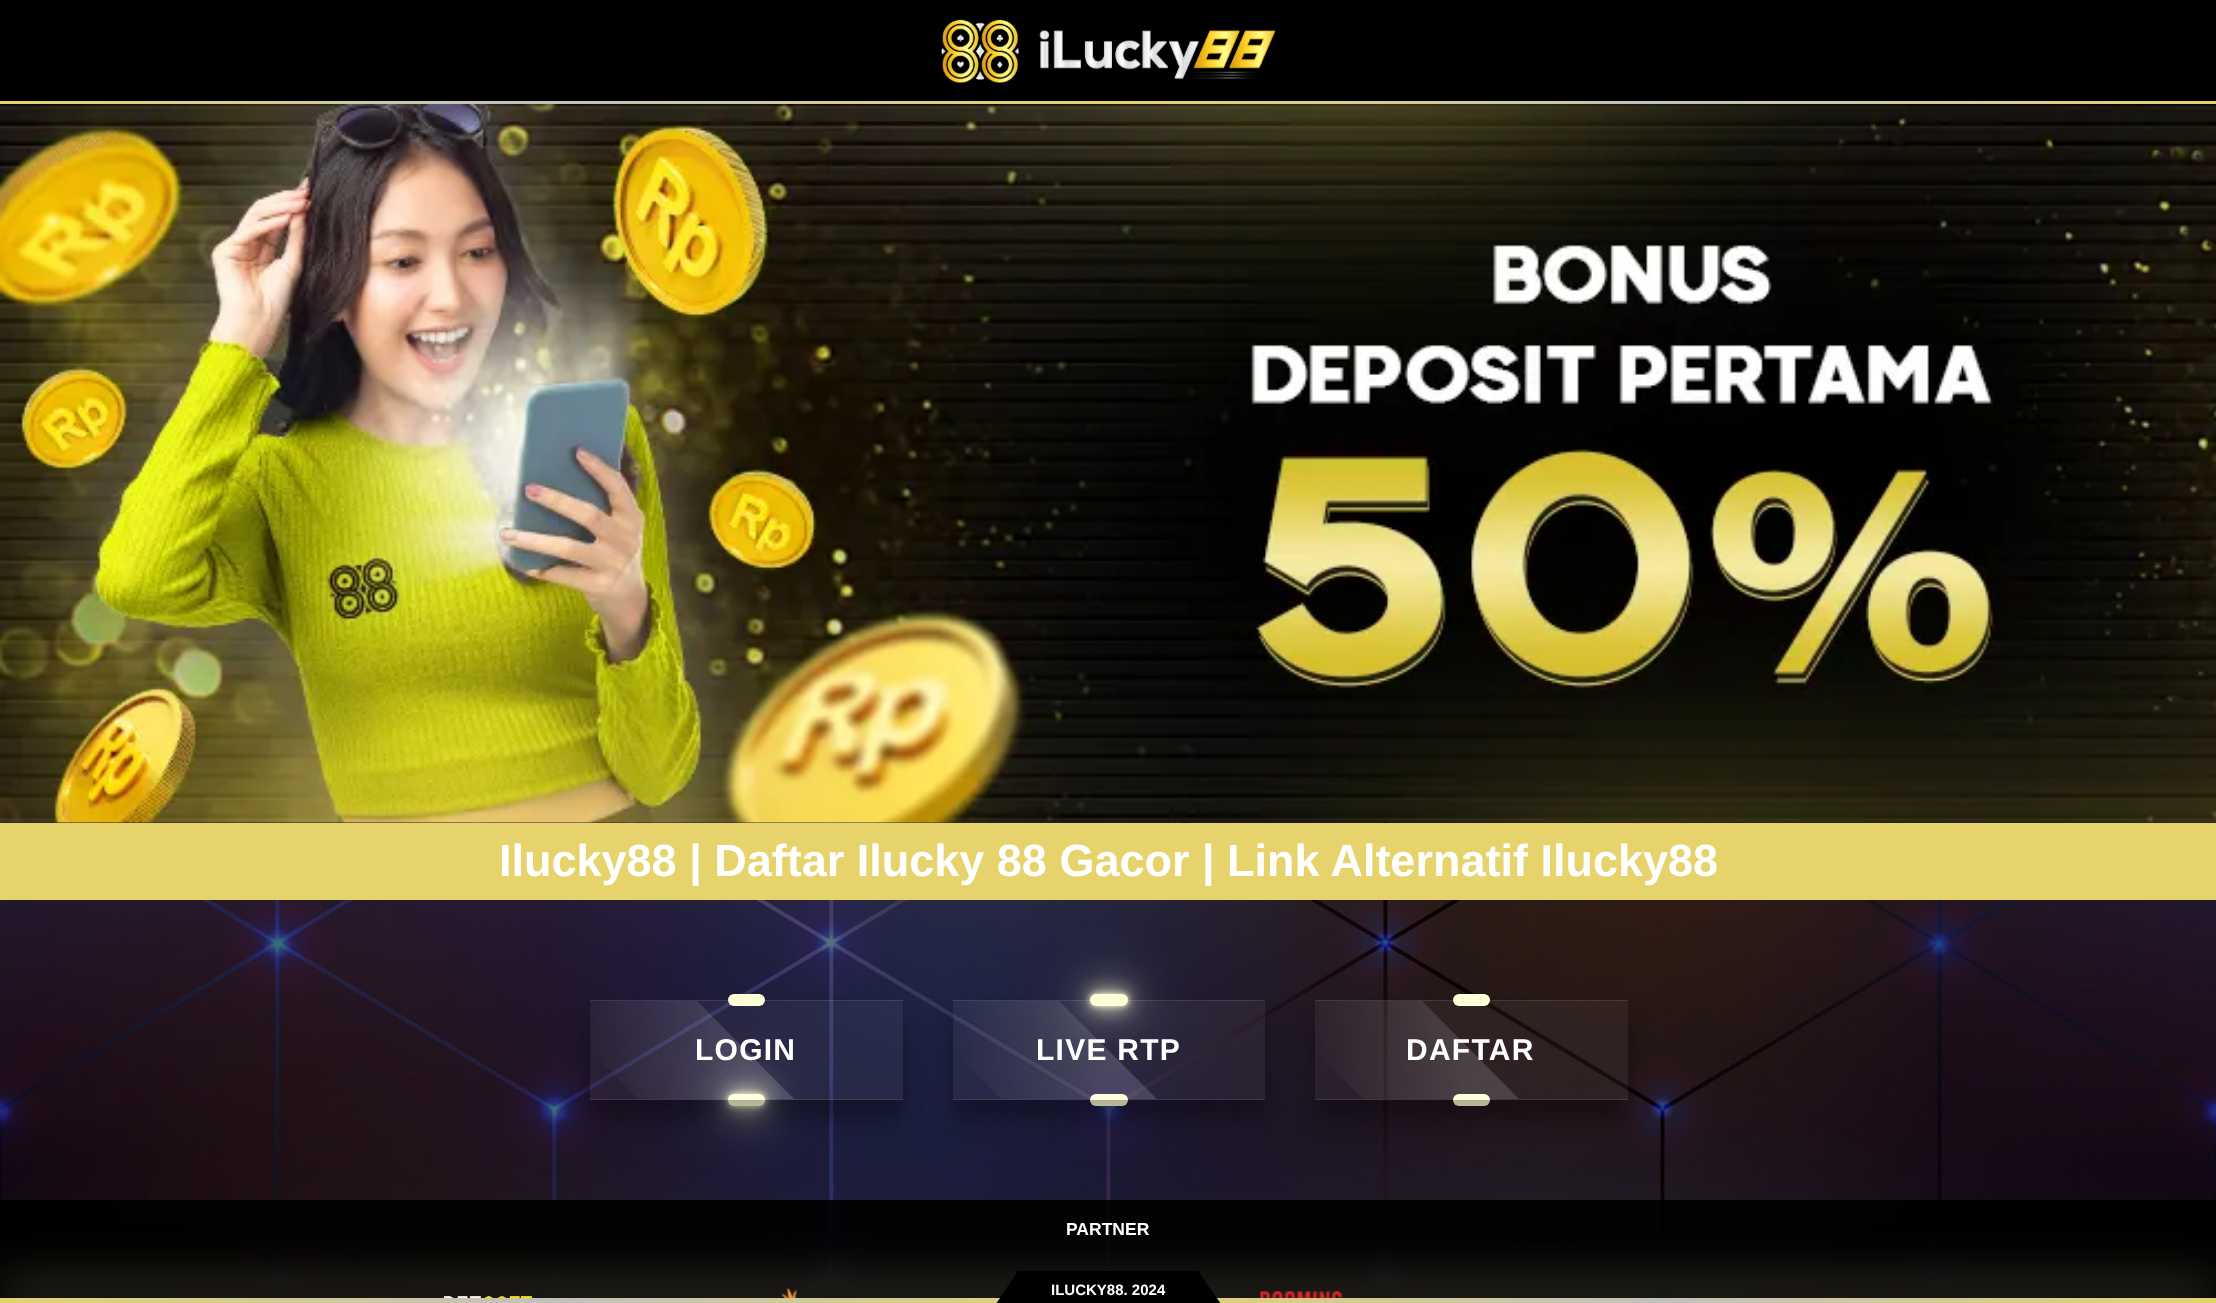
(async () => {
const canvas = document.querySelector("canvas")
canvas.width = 2216
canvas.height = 1303
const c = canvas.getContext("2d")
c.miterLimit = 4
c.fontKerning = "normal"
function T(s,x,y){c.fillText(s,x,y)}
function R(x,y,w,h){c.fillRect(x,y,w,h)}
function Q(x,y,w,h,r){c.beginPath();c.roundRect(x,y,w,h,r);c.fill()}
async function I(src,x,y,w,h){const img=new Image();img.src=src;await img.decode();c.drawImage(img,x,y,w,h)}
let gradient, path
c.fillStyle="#fff"
R(0,0,2216,1303)
await I("1.png",0,822,2216,476)
c.fillStyle="#000"
R(0,0,2216,101)
await I("2.png",941,19,335,64)
gradient = c.createLinearGradient(0,103,2216,102)
gradient.addColorStop(0,"#e7d36b")
gradient.addColorStop(.25,"#c1c1c1")
gradient.addColorStop(.5,"#e7d36b")
gradient.addColorStop(.75,"#c1c1c1")
gradient.addColorStop(1,"#e7d36b")
c.fillStyle = gradient
R(0,101,2216,3)
await I("3.png",0,104,2216,719)
c.fillStyle="#e7d36b"
R(0,823,2216,77)
c.font="bold 45px Liberation Sans"
c.fillStyle="#fff"
T("Ilucky88 | Daftar Ilucky 88 Gacor | Link Alternatif Ilucky88",499,876)
c.fillStyle="#ffffd6"
c.filter="blur(37.5px)"
c.beginPath()
c.roundRect(728,1094,37,12,6)
c.fill()
c.filter="none"
c.filter="blur(19px)"
c.beginPath()
c.roundRect(728,1094,37,12,6)
c.fill()
c.filter="none"
c.filter="blur(9.5px)"
c.beginPath()
c.roundRect(728,1094,37,12,6)
c.fill()
c.filter="none"
c.filter="blur(3px)"
c.beginPath()
c.roundRect(728,1094,37,12,6)
c.fill()
c.filter="none"
Q(728,1094,37,12,6)
Q(728,994,37,12,6)
c.save()
path = new Path2D("M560 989h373v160h-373zm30 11h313v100h-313z")
c.clip(path,"evenodd")
c.fillStyle="#0000004d"
c.filter="blur(9.5px)"
c.beginPath()
c.rect(590,1019,313,100)
c.fill()
c.filter="none"
c.restore()
c.fillStyle="#ffffff0d"
R(590,1000,313,100)
c.fillStyle="#ffffff1a"
R(590,1000,313,1)
R(590,1099,313,1)
gradient = c.createLinearGradient(746,1050,589,1050)
gradient.addColorStop(0,"#ffffff26")
gradient.addColorStop(1,"#ffffff00")
c.fillStyle = gradient
path = new Path2D("M541 1001h156l97 98h-156z")
c.fill(path)
c.letterSpacing="1.25px"
c.font="bold 30px Liberation Sans"
c.fillStyle="#fff"
T("LOGIN",695,1060)
c.fillStyle="#ffffd6"
Q(1090,1094,38,12,6)
c.filter="blur(37.5px)"
c.beginPath()
c.roundRect(1090,994,38,12,6)
c.fill()
c.filter="none"
c.filter="blur(19px)"
c.beginPath()
c.roundRect(1090,994,38,12,6)
c.fill()
c.filter="none"
c.filter="blur(9.5px)"
c.beginPath()
c.roundRect(1090,994,38,12,6)
c.fill()
c.filter="none"
c.filter="blur(3px)"
c.beginPath()
c.roundRect(1090,994,38,12,6)
c.fill()
c.filter="none"
Q(1090,994,38,12,6)
c.save()
path = new Path2D("M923 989h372v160h-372zm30 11h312v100h-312z")
c.clip(path,"evenodd")
c.fillStyle="#0000004d"
c.filter="blur(9.5px)"
c.beginPath()
c.rect(953,1019,312,100)
c.fill()
c.filter="none"
c.restore()
c.fillStyle="#ffffff0d"
R(953,1000,312,100)
c.fillStyle="#ffffff1a"
R(953,1000,312,1)
R(953,1099,312,1)
gradient = c.createLinearGradient(1108,1050,952,1050)
gradient.addColorStop(0,"#ffffff26")
gradient.addColorStop(1,"#ffffff00")
c.fillStyle = gradient
path = new Path2D("M903 1001h156l98 98h-156z")
c.fill(path)
c.fillStyle="#fff"
T("LIVE RTP",1036,1060)
c.fillStyle="#ffffd6"
Q(1453,994,37,12,6)
Q(1453,1094,37,12,6)
c.save()
path = new Path2D("M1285 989h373v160h-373zm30 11h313v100h-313z")
c.clip(path,"evenodd")
c.fillStyle="#0000004d"
c.filter="blur(9.5px)"
c.beginPath()
c.rect(1315,1019,313,100)
c.fill()
c.filter="none"
c.restore()
c.fillStyle="#ffffff0d"
R(1315,1000,313,100)
c.fillStyle="#ffffff1a"
R(1315,1000,313,1)
R(1315,1099,313,1)
gradient = c.createLinearGradient(1471,1050,1314,1050)
gradient.addColorStop(0,"#ffffff26")
gradient.addColorStop(1,"#ffffff00")
c.fillStyle = gradient
path = new Path2D("M1266 1001h156l97 98h-156z")
c.fill(path)
c.fillStyle="#fff"
T("DAFTAR",1406,1060)
c.letterSpacing="0px"
c.font="bold 17.5px Liberation Sans"
T("PARTNER",1066,1235)
await I("4.png",443,1296,89,2)
await I("5.png",781,1288,17,10)
await I("6.png",1260,1291,83,7)
gradient = c.createLinearGradient(0,1301,2216,1301)
gradient.addColorStop(0,"#e7d36b")
gradient.addColorStop(.25,"#c1c1c1")
gradient.addColorStop(.5,"#e7d36b")
gradient.addColorStop(.75,"#c1c1c1")
gradient.addColorStop(1,"#e7d36b")
c.fillStyle = gradient
R(0,1298,2216,5)
c.fillStyle="#d4ca96"
c.filter="blur(25px)"
c.beginPath()
c.rect(0,1291,2216,7)
c.fill()
c.filter="none"
c.fillStyle="#000"
path = new Path2D("M996 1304l22-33h180l23 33z")
c.fill(path)
c.font="bold 15px Liberation Sans"
c.fillStyle="#fff"
T("ILUCKY88. 2024",1051,1295)
})()
